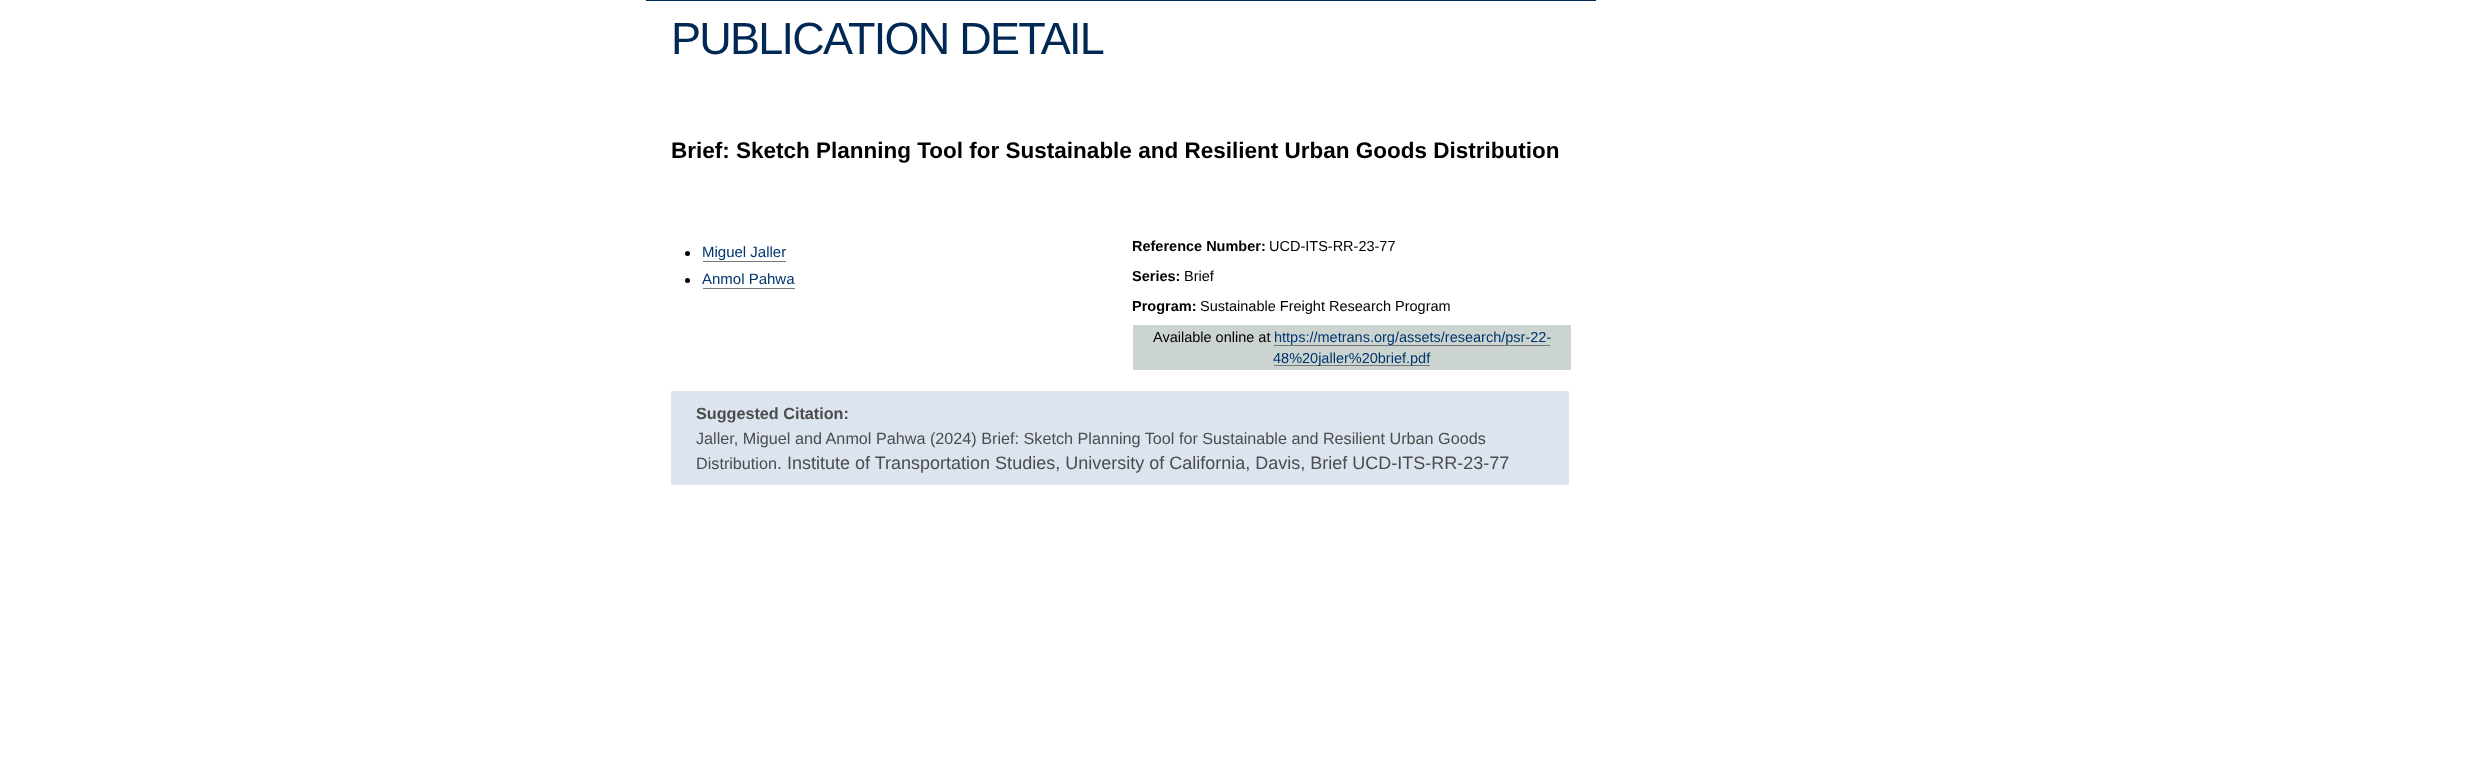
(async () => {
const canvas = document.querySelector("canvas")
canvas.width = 2480
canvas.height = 783
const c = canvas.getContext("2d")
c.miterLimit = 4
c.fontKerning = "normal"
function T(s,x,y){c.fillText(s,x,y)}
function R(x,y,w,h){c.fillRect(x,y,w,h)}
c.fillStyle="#fff"
R(0,0,2480,783)
c.fillStyle="#002855"
R(646,0,950,1)
c.letterSpacing="-1.75px"
c.font="45px Liberation Sans"
T("PUBLICATION DETAIL",671,54)
c.letterSpacing="0px"
c.font="bold 22.5px Liberation Sans"
c.fillStyle="#000"
T("Brief: Sketch Planning Tool for Sustainable and Resilient Urban Goods Distribution",671,158)
c.beginPath()
c.arc(687.5,253.5,2.5,0,7)
c.fill()
c.font="15px Liberation Sans"
c.fillStyle="#003570"
T("Miguel Jaller",702,257)
c.fillStyle="#777"
R(703,261,83,1)
c.fillStyle="#000"
c.beginPath()
c.arc(687.5,280.5,2.5,0,7)
c.fill()
c.fillStyle="#003570"
T("Anmol Pahwa",702,284)
c.fillStyle="#777"
R(703,288,92,1)
c.font="bold 14.5px Liberation Sans"
c.fillStyle="#000"
T("Reference Number:",1132,251)
c.font="14.5px Liberation Sans"
T("UCD-ITS-RR-23-77",1269,251)
c.font="bold 14.5px Liberation Sans"
T("Series:",1132,281)
c.font="14.5px Liberation Sans"
T("Brief",1184,281)
c.font="bold 14.5px Liberation Sans"
T("Program:",1132,311)
c.font="14.5px Liberation Sans"
T("Sustainable Freight Research Program",1200,311)
c.fillStyle="#ccd4d0"
R(1133,325,438,45)
c.fillStyle="#000"
T("Available online at",1153,342)
c.fillStyle="#003570"
T("https://metrans.org/assets/research/psr-22-",1274,342)
c.fillStyle="#777"
R(1274,345,276,1)
R(1274,365,156,1)
c.fillStyle="#003570"
T("48%20jaller%20brief.pdf",1273,363)
c.fillStyle="#dce4f0"
R(671,391,898,94)
c.font="bold 16.2px Liberation Sans"
c.fillStyle="#4c4c4c"
T("Suggested Citation:",696,419)
c.font="16.2px Liberation Sans"
T("Jaller, Miguel and Anmol Pahwa (2024) Brief: Sketch Planning Tool for Sustainable and Resilient Urban Goods",696,444)
T("Distribution",696,469)
c.font="18px Liberation Sans"
T(". Institute of Transportation Studies, University of California, Davis, Brief UCD-ITS-RR-23-77",777,469)
})()
